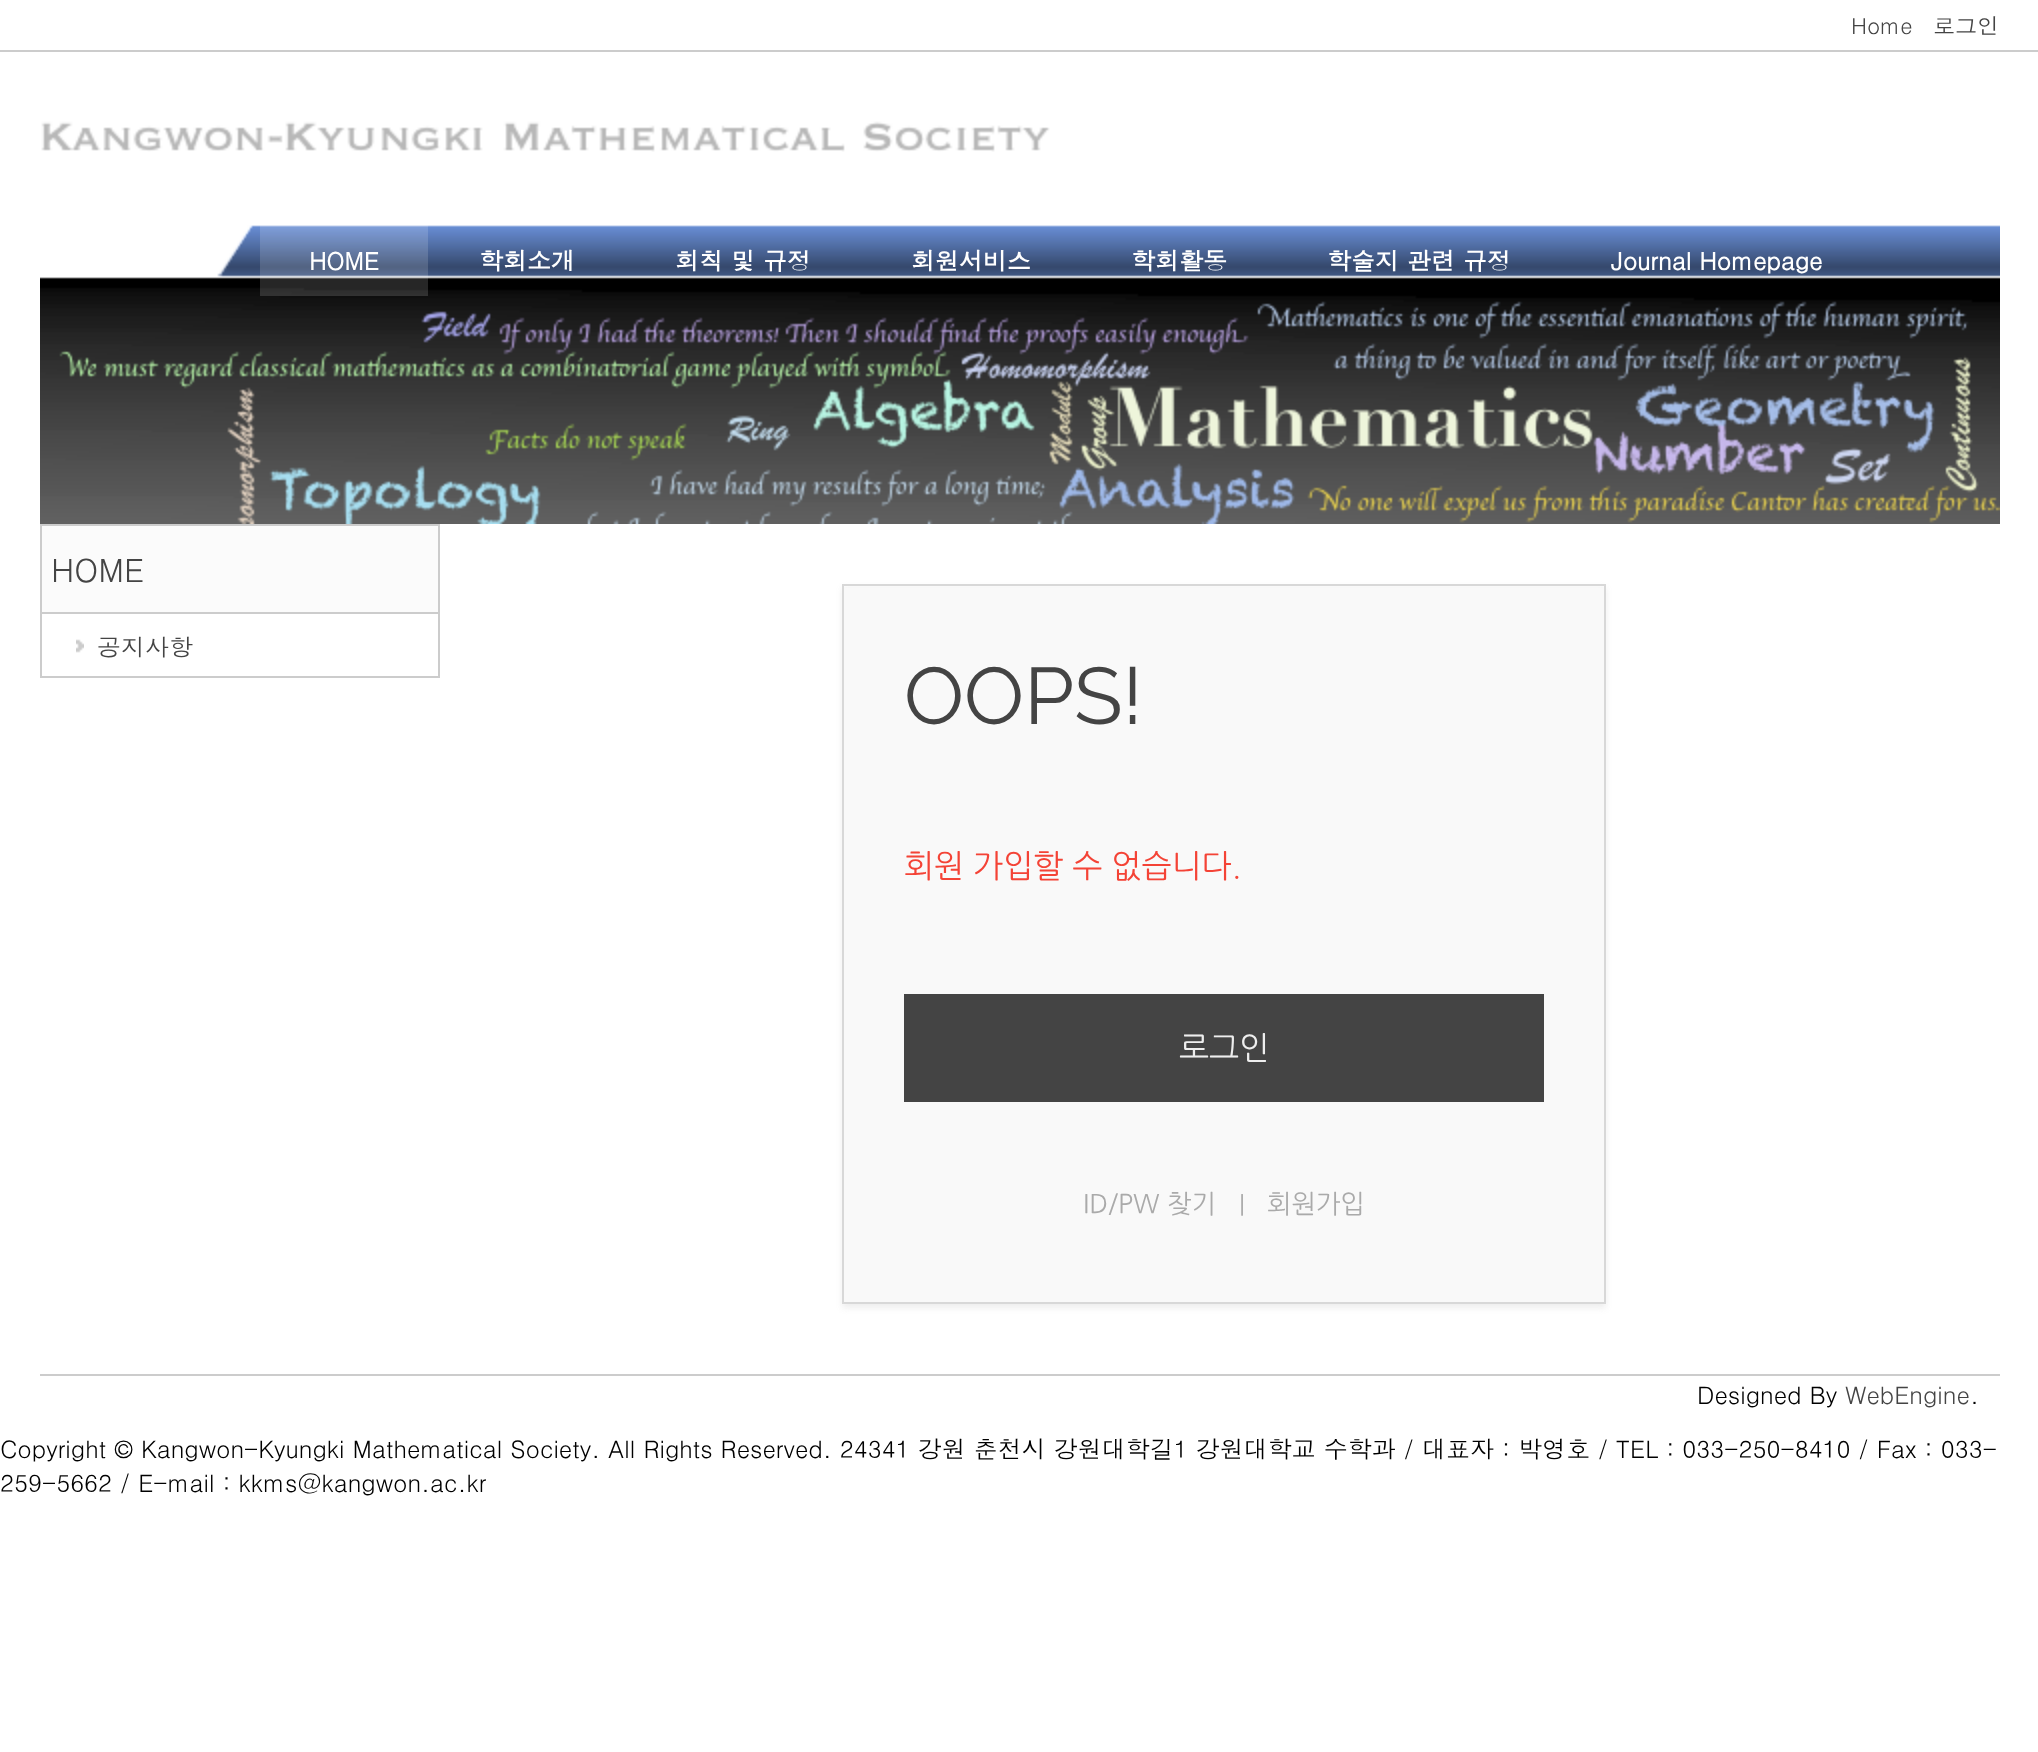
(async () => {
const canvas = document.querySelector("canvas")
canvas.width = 2038
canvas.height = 1752
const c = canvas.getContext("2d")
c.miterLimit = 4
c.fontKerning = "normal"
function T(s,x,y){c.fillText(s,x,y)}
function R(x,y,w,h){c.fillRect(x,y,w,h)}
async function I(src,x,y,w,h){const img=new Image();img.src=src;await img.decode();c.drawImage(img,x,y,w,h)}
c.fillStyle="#fff"
R(0,0,2038,1752)
c.fillStyle="#ccc"
R(0,50,2038,2)
c.font="22px Dotum"
c.fillStyle="#444"
T("Home",1851,34)
T("로그인",1933,34)
await I("1.png",41,121,1009,31)
await I("2.png",40,224,1960,300)
c.fillStyle="#ffffff26"
R(260,225,168,71)
c.font="bold 24px Dotum"
c.fillStyle="#fff"
T("HOME",309,270)
T("학회소개",479,270)
T("회칙 및 규정",675,270)
T("회원서비스",911,270)
T("학회활동",1131,270)
T("학술지 관련 규정",1327,270)
T("Journal Homepage",1611,270)
c.fillStyle="#fbfbfb"
c.beginPath()
c.rect(41,525,398,88)
c.fill()
c.strokeStyle="#ccc"
c.lineWidth=2
c.stroke()
c.font="32px Dotum"
c.fillStyle="#444"
T("HOME",51,582)
c.fillStyle="#ccc"
R(438,614,2,64)
R(40,676,400,2)
R(40,614,2,64)
await I("3.png",76,639,8,14)
c.font="24px Dotum"
c.fillStyle="#444"
T("공지사항",97,656)
c.fillStyle="#eee"
c.filter="blur(3px)"
c.beginPath()
c.rect(842,588,764,720)
c.fill()
c.filter="none"
c.fillStyle="#f9f9f9"
R(844,588,760,714)
c.strokeStyle="#d8d8d8"
c.strokeRect(843,585,762,718)
c.font="80px Raleway"
c.fillStyle="#444"
T("OOPS!",904,724)
c.font="32px NanumGothic"
c.fillStyle="#f44336"
T("회원 가입할 수 없습니다.",904,876)
c.fillStyle="#444"
R(904,994,640,108)
c.fillStyle="#eee"
T("로그인",1179,1058)
c.font="26px NanumGothic"
c.fillStyle="#aaa"
T("ID/PW 찾기",1083,1212)
c.font="24px NanumGothic"
T("|",1239,1212)
c.font="26px NanumGothic"
T("회원가입",1267,1212)
c.fillStyle="#ccc"
R(40,1374,1960,2)
c.font="24px Dotum"
c.fillStyle="#000"
T("Designed By",1697,1404)
c.fillStyle="#444"
T("WebEngine",1845,1404)
c.fillStyle="#000"
T(".",1970,1404)
T("Copyright © Kangwon-Kyungki Mathematical Society. All Rights Reserved. 24341 강원 춘천시 강원대학길1 강원대학교 수학과 / 대표자 : 박영호 / TEL : 033-250-8410 / Fax : 033-",0,1458)
T("259-5662 / E-mail : kkms@kangwon.ac.kr",0,1492)
})()
